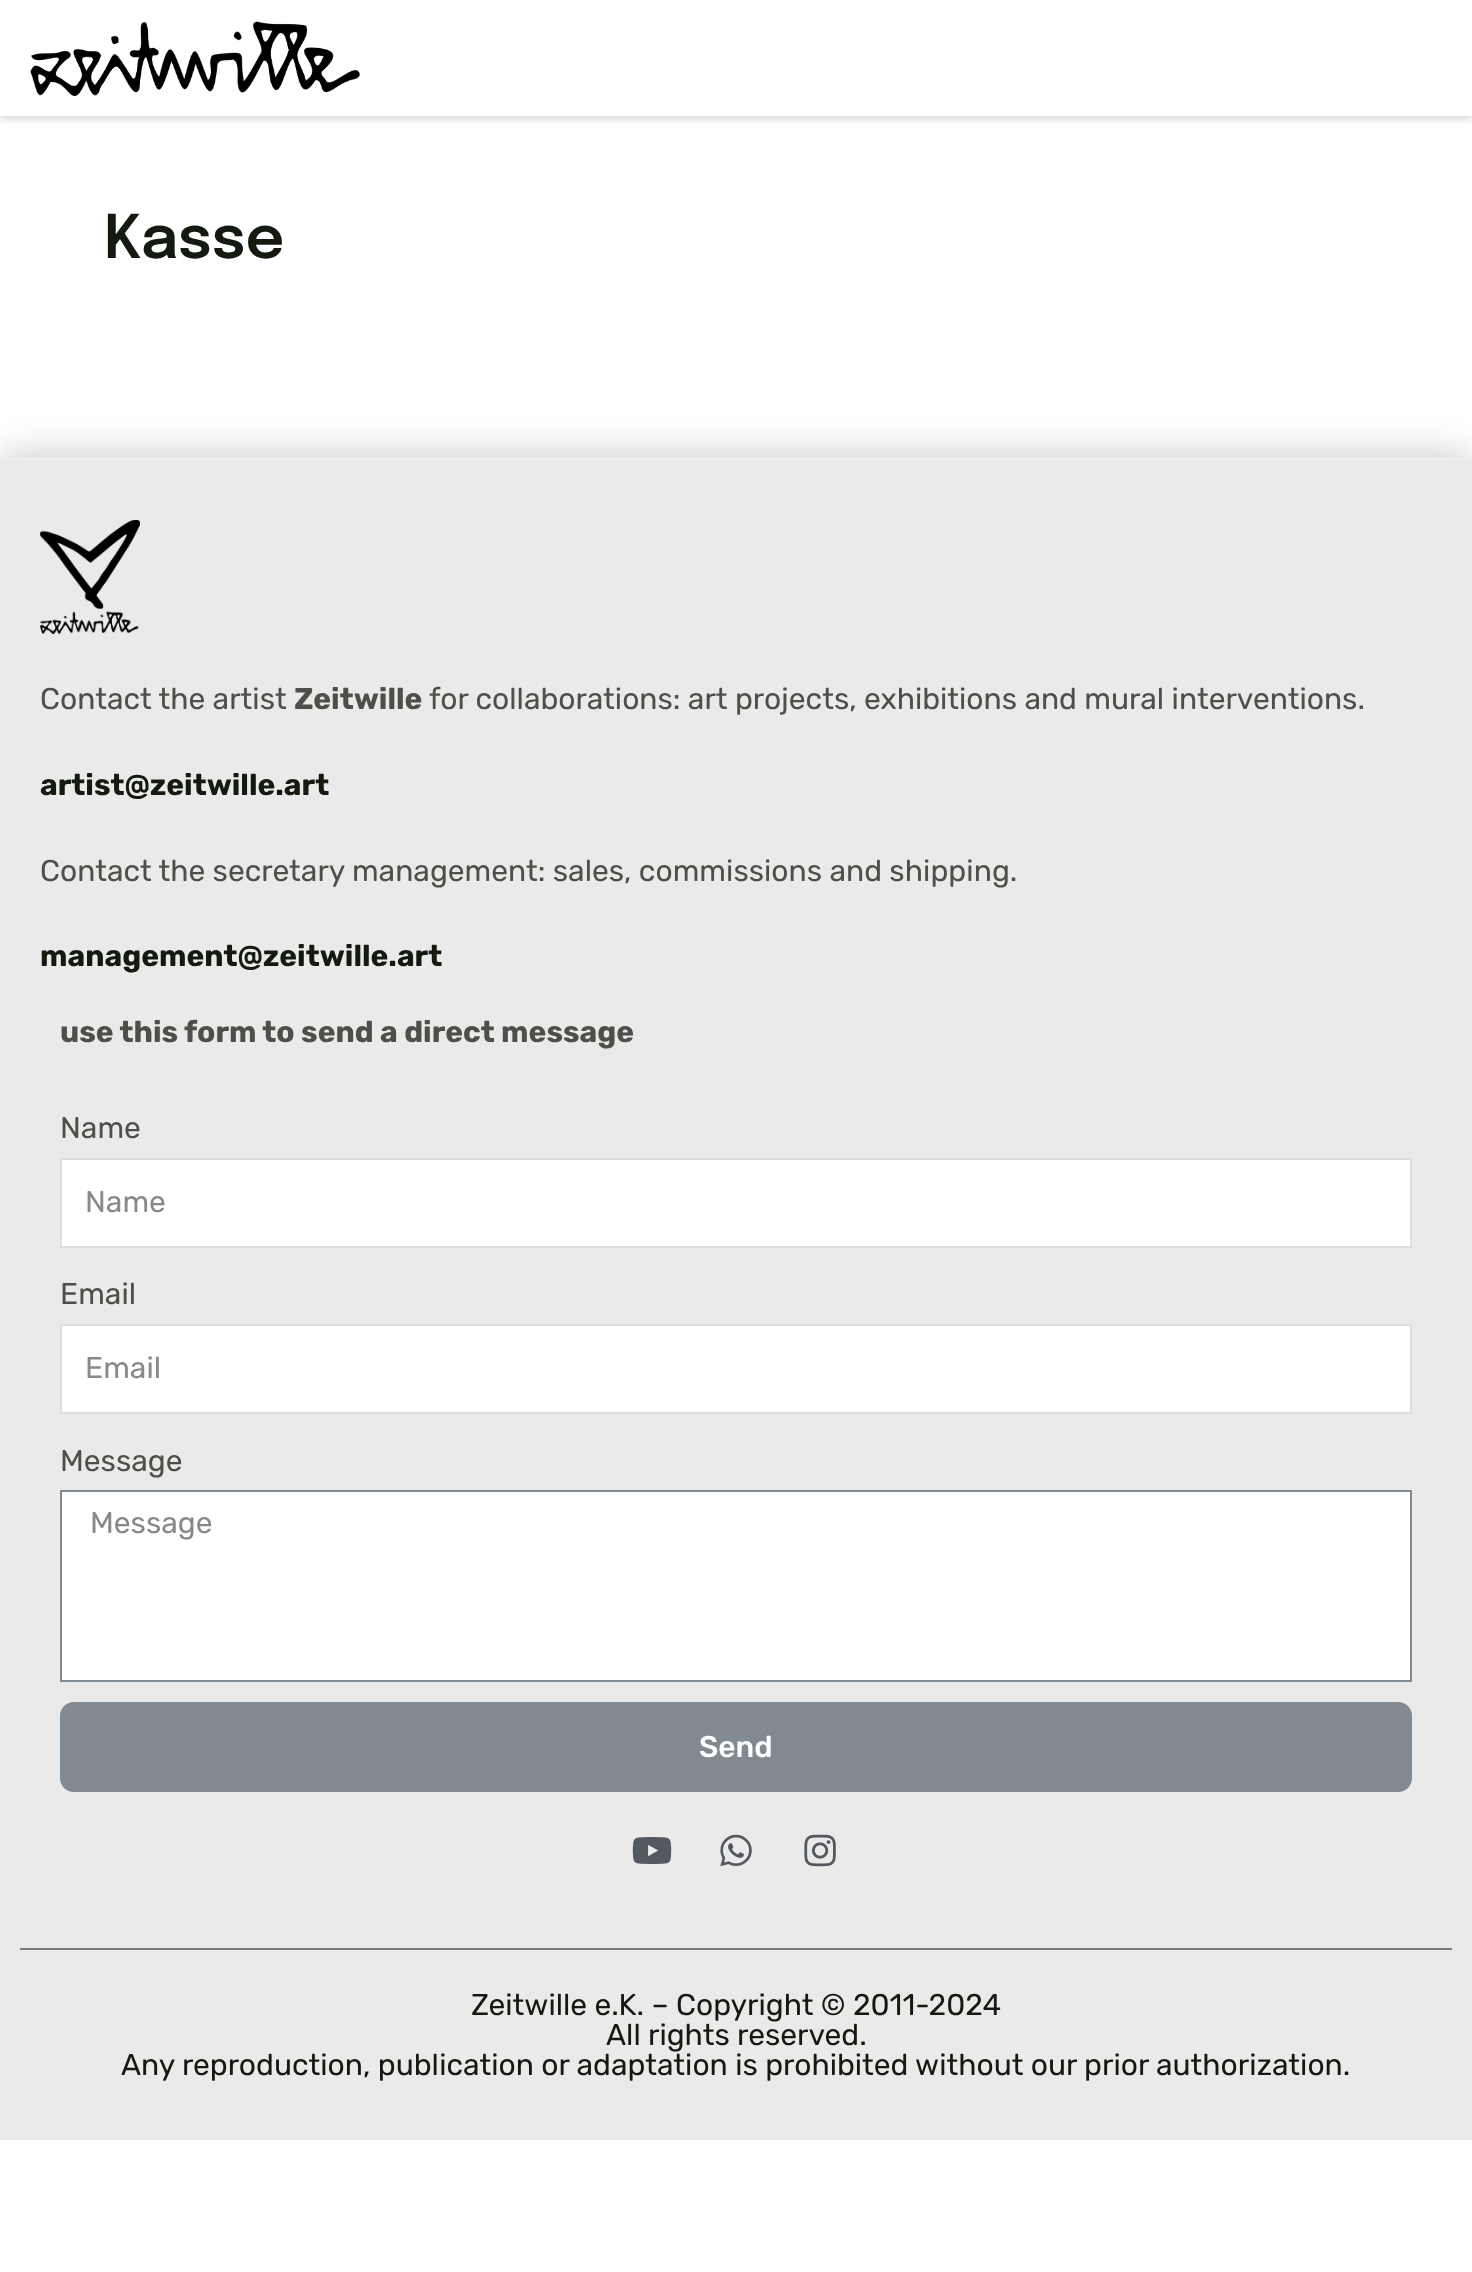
(async () => {
const canvas = document.querySelector("canvas")
canvas.width = 1472
canvas.height = 2272
const c = canvas.getContext("2d")
c.miterLimit = 4
c.fontKerning = "normal"
function T(s,x,y){c.fillText(s,x,y)}
function R(x,y,w,h){c.fillRect(x,y,w,h)}
function Q(x,y,w,h,r){c.beginPath();c.roundRect(x,y,w,h,r);c.fill()}
async function I(src,x,y,w,h){const img=new Image();img.src=src;await img.decode();c.drawImage(img,x,y,w,h)}
c.fillStyle="#fff"
R(0,0,1472,2272)
c.save()
c.beginPath()
c.rect(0,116,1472,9)
c.clip()
c.fillStyle="#b9b9b980"
c.filter="blur(3px)"
c.beginPath()
c.rect(0,4,1472,116)
c.fill()
c.filter="none"
c.restore()
await I("1.png",30,21,330,75)
c.font="600 60px Epilogue"
c.fillStyle="#141a0f"
T("Kasse",104,258)
c.fillStyle="#9c9c9c80"
c.filter="blur(17px)"
c.beginPath()
c.rect(0,454,1472,1470)
c.fill()
c.filter="none"
c.fillStyle="#eaeaea"
R(0,460,1472,1680)
c.fillStyle="#eee"
R(0,458,1472,2)
await I("2.png",40,520,100,114)
c.font="300 30px Rubik"
c.fillStyle="#4d4f48"
T("Contact the artist",40,709)
c.font="300 30px 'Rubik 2'"
T("Zeitwille",294,709)
c.font="300 30px Rubik"
T("for collaborations: art projects, exhibitions and mural interventions.",429,709)
c.font="300 30px 'Rubik 2'"
c.fillStyle="#141a0f"
T("artist@zeitwille.art",40,795)
c.font="300 30px Rubik"
c.fillStyle="#4d4f48"
T("Contact the secretary management: sales, commissions and shipping.",40,881)
c.font="300 30px 'Rubik 2'"
c.fillStyle="#141a0f"
T("management@zeitwille.art",40,966)
c.fillStyle="#4d4f48"
T("use this form to send a direct message",60,1042)
c.font="300 30px Rubik"
T("Name",60,1138)
c.fillStyle="#fff"
c.beginPath()
c.rect(61,1159,1350,88)
c.fill()
c.strokeStyle="#ddd"
c.lineWidth=2
c.stroke()
c.fillStyle="#87898a"
T("Name",85,1212)
c.fillStyle="#4d4f48"
T("Email",60,1304)
c.fillStyle="#fff"
c.beginPath()
c.rect(61,1325,1350,88)
c.fill()
c.stroke()
c.fillStyle="#87898a"
T("Email",85,1378)
c.fillStyle="#4d4f48"
T("Message",60,1471)
c.fillStyle="#fff"
c.beginPath()
c.rect(61,1491,1350,190)
c.fill()
c.strokeStyle="#818a91"
c.stroke()
c.fillStyle="#87898a"
T("Message",90,1533)
c.fillStyle="#818a91"
Q(60,1702,1352,90,14)
c.font="300 30px 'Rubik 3'"
c.fillStyle="#fff"
T("Send",699,1757)
await I("3.png",632,1837,40,27)
await I("4.png",720,1834,32,33)
await I("5.png",804,1834,32,33)
c.fillStyle="#7a7a7a"
R(20,1948,1432,2)
c.font="300 30px Rubik"
c.fillStyle="#141a0f"
T("Zeitwille e.K. – Copyright © 2011-2024",471,2015)
T("All rights reserved.",606,2045)
T("Any reproduction, publication or adaptation is prohibited without our prior authorization.",121,2075)
})()
